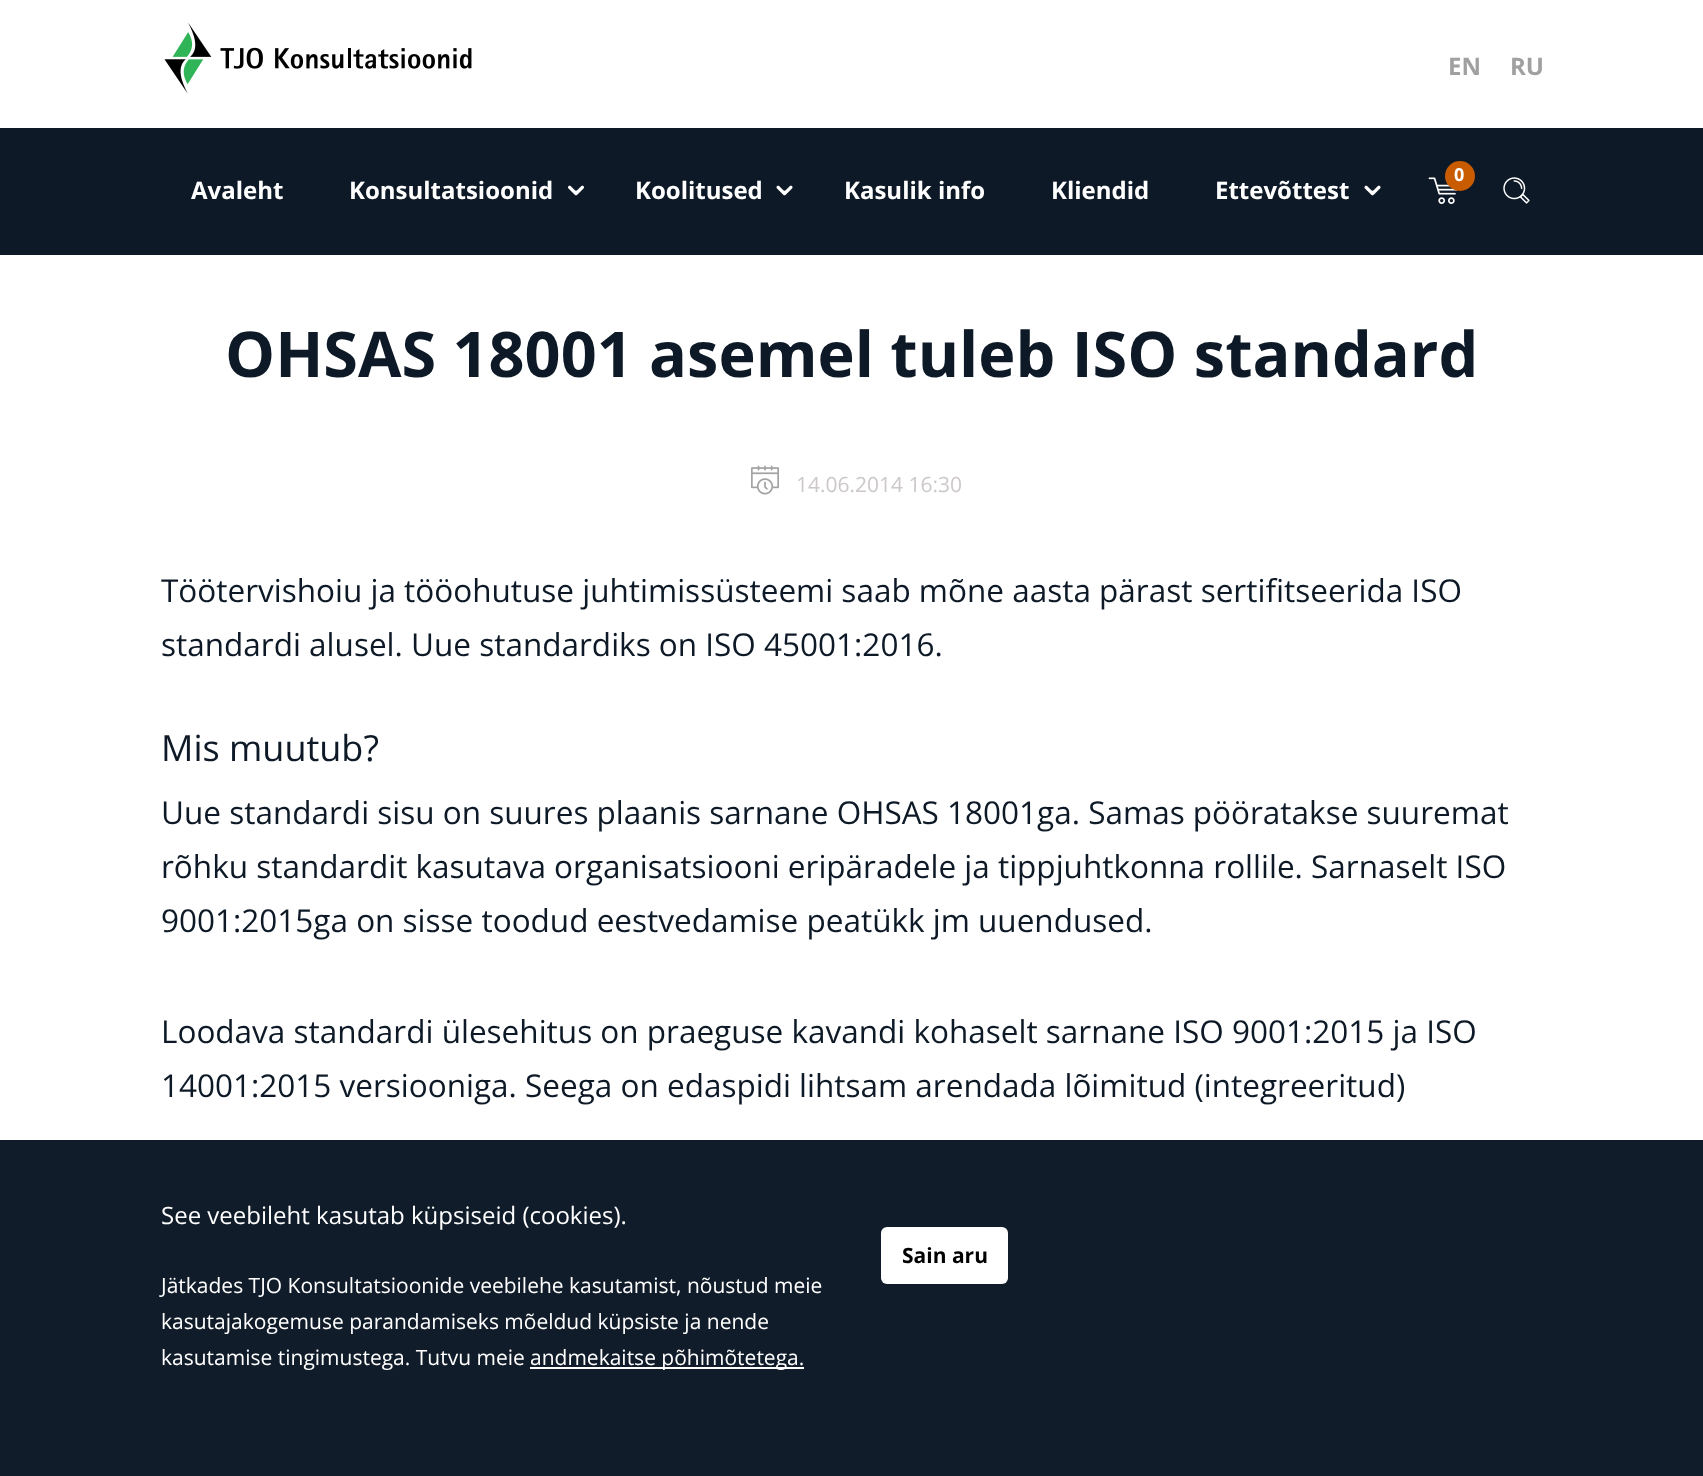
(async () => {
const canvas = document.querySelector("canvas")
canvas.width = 1703
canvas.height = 1476
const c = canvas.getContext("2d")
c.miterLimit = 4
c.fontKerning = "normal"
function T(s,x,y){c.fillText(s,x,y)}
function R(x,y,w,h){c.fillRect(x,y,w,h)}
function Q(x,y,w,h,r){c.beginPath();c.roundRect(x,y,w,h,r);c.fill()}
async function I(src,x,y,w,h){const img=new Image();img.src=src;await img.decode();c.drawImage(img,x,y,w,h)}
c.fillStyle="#fff"
R(0,0,1703,1476)
await I("1.png",164,23,308,71)
c.font="bold 24px Open Sans"
c.fillStyle="#a0a0a0"
T("EN",1448,75)
T("RU",1510,75)
c.fillStyle="#0d1926"
R(0,128,1703,127)
await I("2.png",1428,177,30,27)
c.fillStyle="#c95b00"
c.beginPath()
c.arc(1460,176,15,0,7)
c.fill()
c.font="bold 18px Open Sans"
c.fillStyle="#fff"
T("0",1454,181)
await I("3.png",1503,177,27,27)
c.font="bold 24px Open Sans"
T("Avaleht",191,199)
T("Konsultatsioonid",349,199)
await I("4.png",568,185,16,11)
T("Koolitused",635,199)
await I("5.png",776,185,17,11)
T("Kasulik info",844,199)
T("Kliendid",1051,199)
T("Ettevõttest",1215,199)
await I("5.png",1364,185,17,11)
c.fillStyle="#0d1926fc"
R(0,1140,1703,336)
c.font="24px Open Sans"
c.fillStyle="#fff"
T("See veebileht kasutab küpsiseid (cookies).",161,1224)
c.font="21px Open Sans"
T("Jätkades TJO Konsultatsioonide veebilehe kasutamist, nõustud meie",161,1293)
T("kasutajakogemuse parandamiseks mõeldud küpsiste ja nende",161,1329)
T("kasutamise tingimustega. Tutvu meie",161,1365)
R(530,1367,274,2)
T("andmekaitse põhimõtetega.",530,1365)
Q(881,1227,127,57,6)
c.font="bold 21px Open Sans"
c.fillStyle="#000"
T("Sain aru",902,1263)
c.font="bold 63px Open Sans"
c.fillStyle="#0d1926"
T("OHSAS 18001 asemel tuleb ISO standard",225,377)
await I("6.png",751,465,28,30)
c.font="21px Open Sans"
c.fillStyle="#cdc8c8"
T("14.06.2014 16:30",796,492)
c.font="31.5px Open Sans"
c.fillStyle="#0d1926"
T("Töötervishoiu ja tööohutuse juhtimissüsteemi saab mõne aasta pärast sertifitseerida ISO",161,602)
T("standardi alusel. Uue standardiks on ISO 45001:2016.",161,656)
c.font="36px Open Sans"
T("Mis muutub?",161,761)
c.font="31.5px Open Sans"
T("Uue standardi sisu on suures plaanis sarnane OHSAS 18001ga. Samas pööratakse suuremat",161,824)
T("rõhku standardit kasutava organisatsiooni eripäradele ja tippjuhtkonna rollile. Sarnaselt ISO",161,878)
T("9001:2015ga on sisse toodud eestvedamise peatükk jm uuendused.",161,932)
T("Loodava standardi ülesehitus on praeguse kavandi kohaselt sarnane ISO 9001:2015 ja ISO",161,1043)
T("14001:2015 versiooniga. Seega on edaspidi lihtsam arendada lõimitud (integreeritud)",161,1097)
})()
